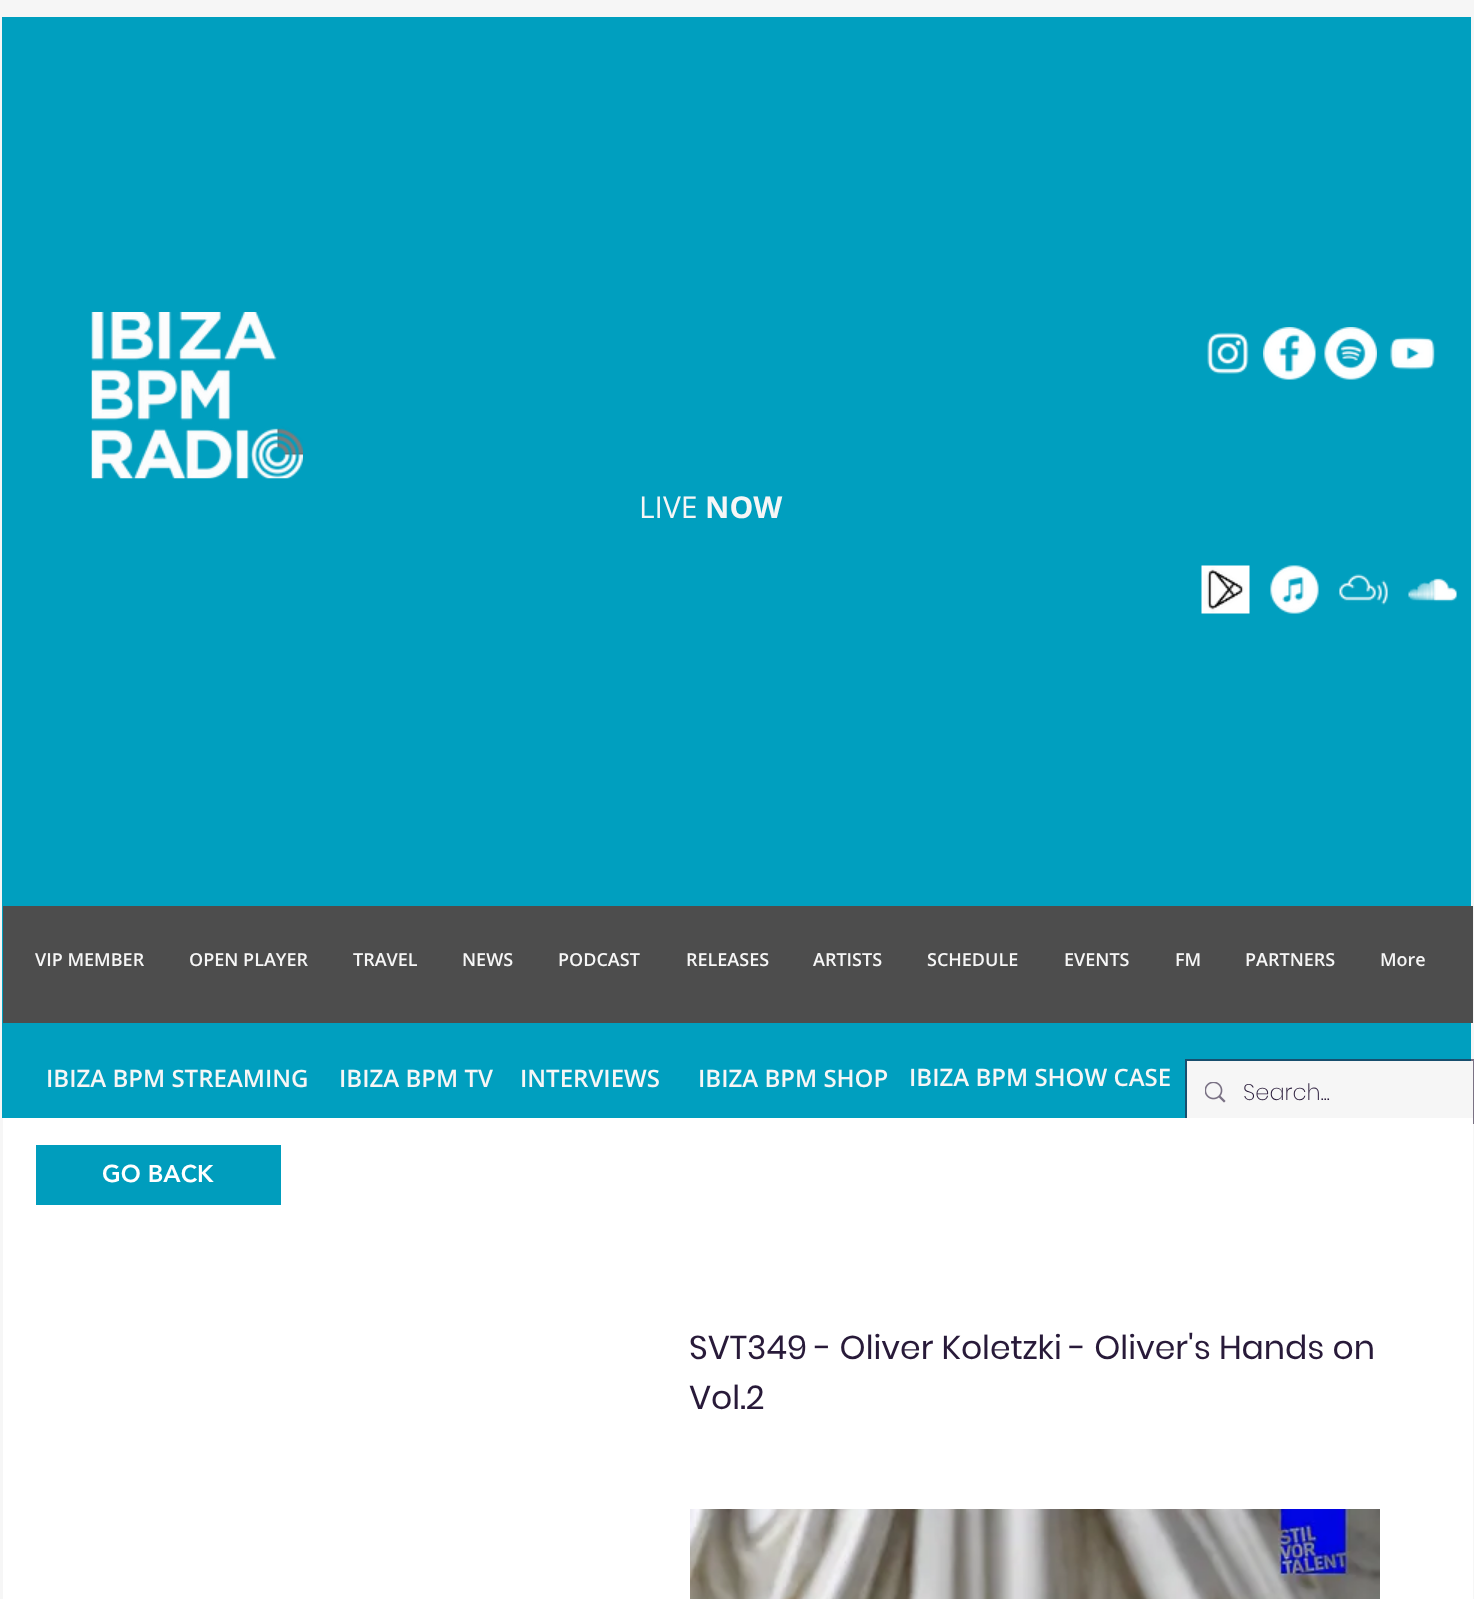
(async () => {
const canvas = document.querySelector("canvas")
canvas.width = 1474
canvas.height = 1599
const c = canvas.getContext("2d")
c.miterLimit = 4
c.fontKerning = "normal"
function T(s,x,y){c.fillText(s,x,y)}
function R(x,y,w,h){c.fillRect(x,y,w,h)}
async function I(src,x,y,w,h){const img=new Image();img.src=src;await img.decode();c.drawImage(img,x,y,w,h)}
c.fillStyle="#f6f6f6"
R(0,0,1474,1599)
c.fillStyle="#009fbf"
R(2,17,1469,1101)
await I("1.png",91,312,212,167)
await I("2.png",1207,332,42,42)
await I("3.png",1263,327,53,53)
await I("4.png",1324,327,53,53)
await I("5.png",1390,337,45,33)
c.font="30px Open Sans"
c.fillStyle="#f6f6f6"
T("LIVE",639,518)
c.font="bold 30px Open Sans"
T("NOW",705,518)
await I("6.png",1201,565,49,49)
await I("7.png",1270,565,49,49)
await I("8.png",1339,574,49,31)
await I("9.png",1408,578,49,24)
c.fillStyle="#4d4d4d"
R(3,906,1470,117)
c.font="600 18px Open Sans"
c.fillStyle="#f6f6f6"
T("VIP MEMBER",35,966)
T("OPEN PLAYER",189,966)
T("TRAVEL",353,966)
T("NEWS",462,966)
T("PODCAST",558,966)
T("RELEASES",686,966)
T("ARTISTS",813,966)
T("SCHEDULE",927,966)
T("EVENTS",1064,966)
T("FM",1175,966)
T("PARTNERS",1245,966)
T("More",1380,966)
c.font="600 24px Open Sans"
T("IBIZA BPM STREAMING",46,1087)
T("IBIZA BPM TV",339,1087)
T("INTERVIEWS",520,1087)
T("IBIZA BPM SHOP",698,1087)
T("IBIZA BPM SHOW CASE",909,1086)
c.strokeStyle="#281a3999"
c.lineWidth=2
c.strokeRect(1186,1060,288,63)
R(1187,1061,284,57)
await I("10.png",1205,1082,21,21)
c.font="200 22.5px Poppins"
c.fillStyle="#281a39"
T("Search...",1243,1100)
c.fillStyle="#fff"
R(3,1118,1470,481)
c.fillStyle="#009dbd"
R(36,1145,245,60)
c.font="900 24px 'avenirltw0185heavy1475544'"
c.fillStyle="#fff"
T("GO BACK",102,1182)
c.font="33px Poppins"
c.fillStyle="#281a39"
T("SVT349 - Oliver Koletzki - Oliver's Hands on",689,1359)
T("Vol.2",689,1409)
await I("11.png",690,1509,690,90)
})()
